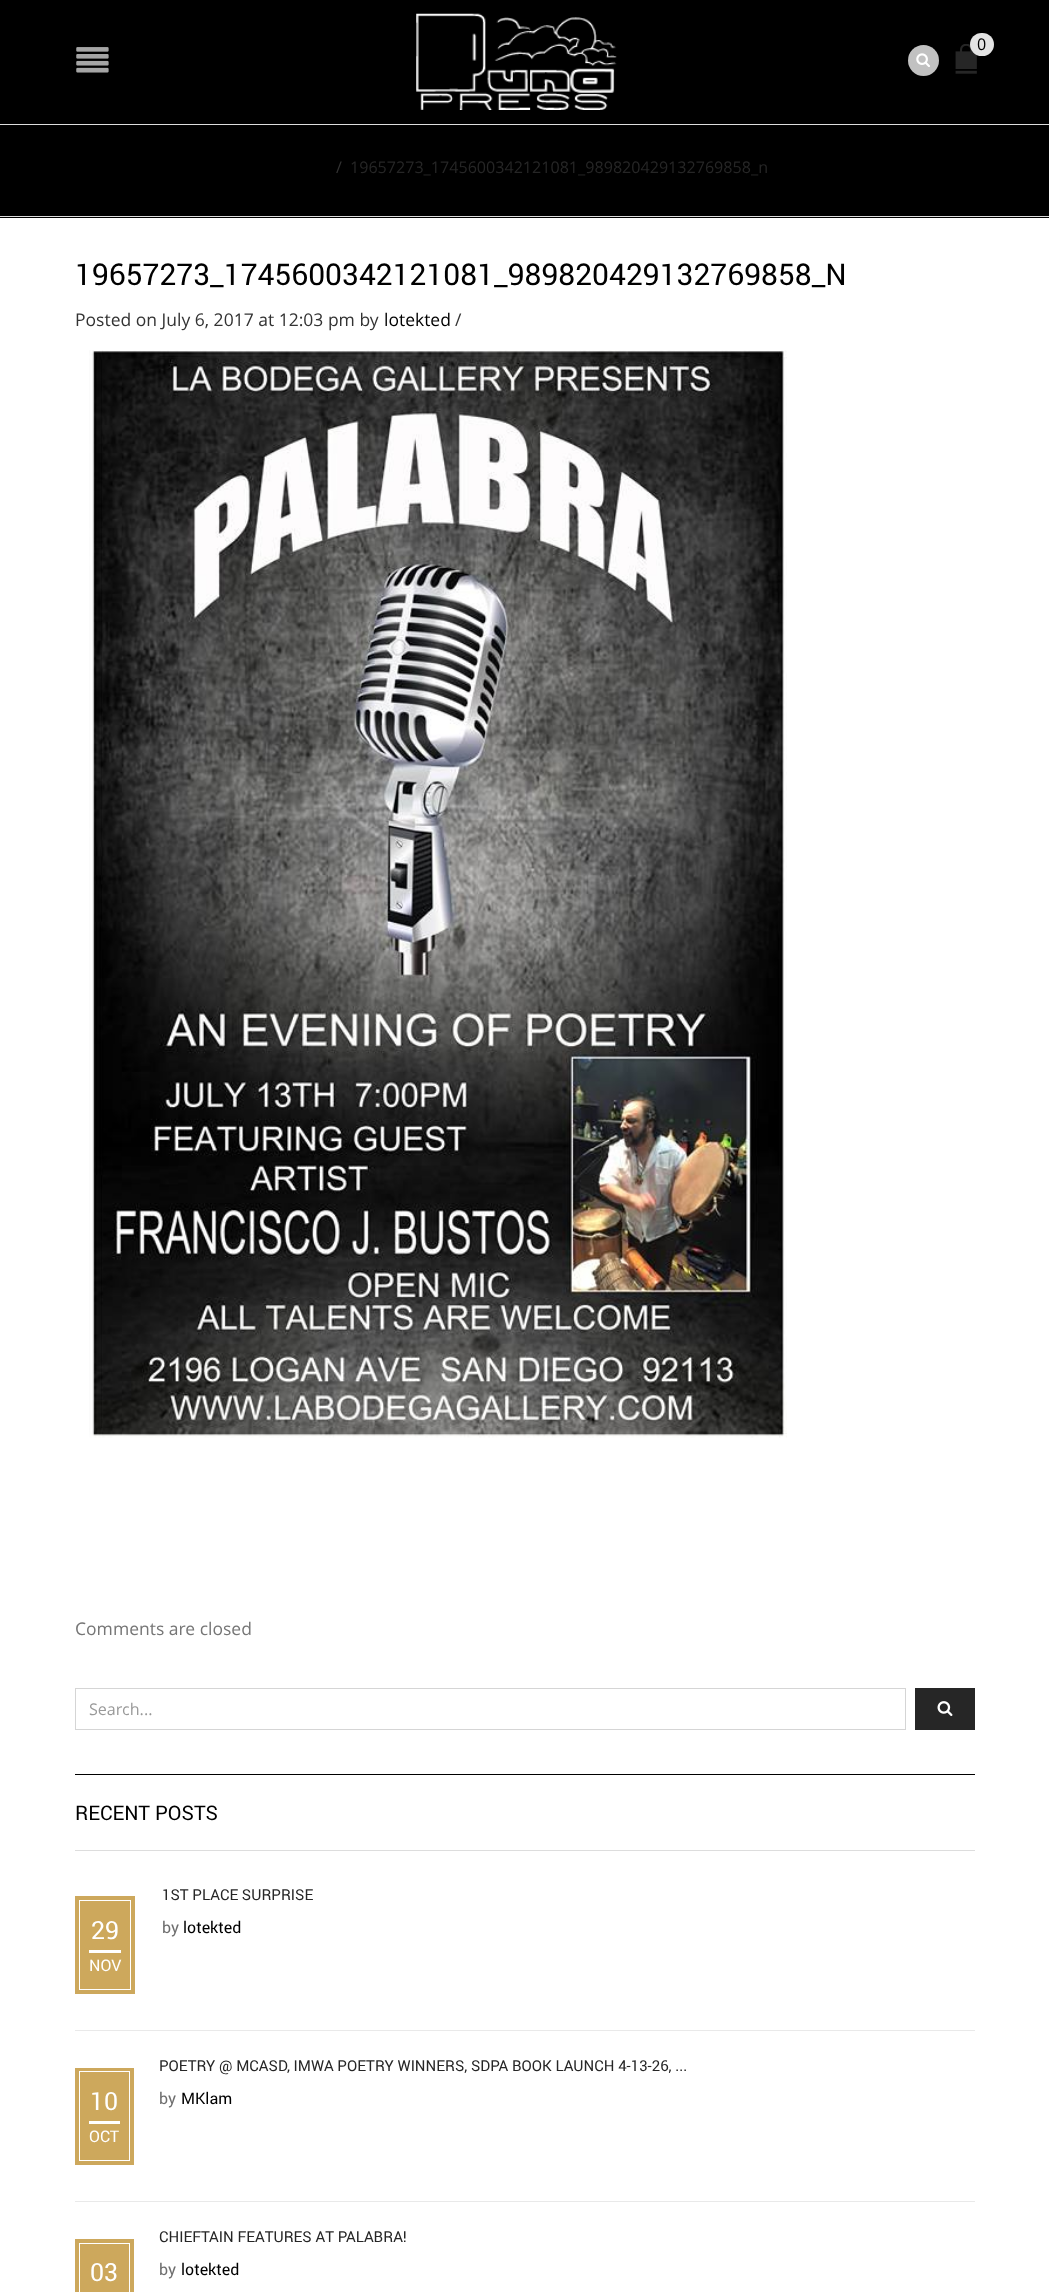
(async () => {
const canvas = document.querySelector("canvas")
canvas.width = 1049
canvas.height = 2292
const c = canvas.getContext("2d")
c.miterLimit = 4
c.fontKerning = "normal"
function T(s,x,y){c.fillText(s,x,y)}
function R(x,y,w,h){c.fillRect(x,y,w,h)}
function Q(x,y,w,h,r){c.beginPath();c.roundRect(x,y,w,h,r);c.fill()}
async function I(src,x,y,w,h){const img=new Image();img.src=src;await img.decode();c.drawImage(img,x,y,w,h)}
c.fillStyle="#fff"
R(0,0,1049,2292)
c.fillStyle="#000"
R(0,0,1049,124)
await I("1.png",416,13,201,97)
c.fillStyle="#c1c1c1"
c.beginPath()
c.arc(923.5,60.5,15.5,0,7)
c.fill()
await I("2.png",916,53,14,14)
await I("3.png",955,44,22,30)
c.fillStyle="#e4e4e4"
Q(970,33,24,23,11.5)
c.font="16.1px Open Sans"
c.fillStyle="#000"
T("0",977,50)
await I("4.png",76,47,33,26)
R(0,125,1049,93)
c.fillStyle="#ddd"
R(0,124,1049,1)
R(0,216,1049,1)
c.fillStyle="#333"
T("/",336,173)
c.fillStyle="#262626"
T("19657273_1745600342121081_989820429132769858_n",350,173)
c.font="30px Roboto"
c.fillStyle="#000"
T("19657273_1745600342121081_989820429132769858_N",75,285)
c.font="17.5px Open Sans"
c.fillStyle="#333"
T("Posted on July 6, 2017 at 12:03 pm by",75,326)
c.fillStyle="#000"
T("lotekted",384,326)
c.fillStyle="#333"
T("/",455,326)
await I("5.png",89,350,698,1088)
c.fillStyle="#767676"
T("Comments are closed",75,1635)
c.strokeStyle="#d5d5d5"
c.strokeRect(75.5,1688.5,830,41)
c.font="16.1px Open Sans"
c.fillStyle="#999"
T("Search...",89,1715)
c.fillStyle="#262626"
R(915,1688,60,42)
await I("6.png",937,1701,16,15)
c.fillStyle="#000"
R(75,1774,900,1)
c.fillStyle="#ddd"
R(75,1850,900,1)
c.font="20px Roboto"
c.fillStyle="#000"
T("RECENT POSTS",75,1820)
c.fillStyle="#e9e9e9"
R(75,2030,900,1)
c.font="15px Roboto"
c.fillStyle="#262626"
T("1ST PLACE SURPRISE",162,1900)
c.font="16px Roboto"
c.fillStyle="#6e6e6e"
T("by",162,1933)
c.fillStyle="#000"
T("lotekted",183,1933)
c.fillStyle="#cda85c"
R(75,1896,60,98)
c.fillStyle="#fff"
R(89,1950,32,3)
c.strokeStyle="#fff"
c.strokeRect(79.5,1900.5,51,89)
c.font="25px Roboto"
T("29",91,1939)
c.font="16px Roboto"
T("NOV",89,1971)
c.fillStyle="#e9e9e9"
R(75,2201,900,1)
c.font="15px Roboto"
c.fillStyle="#262626"
T("POETRY @ MCASD, IMWA POETRY WINNERS, SDPA BOOK LAUNCH 4-13-26, ...",159,2071)
c.font="16px Roboto"
c.fillStyle="#6e6e6e"
T("by",159,2104)
c.fillStyle="#000"
T("MKlam",181,2104)
c.fillStyle="#cda85c"
R(75,2068,59,97)
c.fillStyle="#fff"
R(89,2121,31,3)
c.strokeRect(79.5,2071.5,50,89)
c.font="25px Roboto"
T("10",90,2110)
c.font="16px Roboto"
T("OCT",89,2142)
c.fillStyle="#cda85c"
R(75,2239,59,53)
c.strokeRect(79.5,2243.5,50,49)
c.font="25px Roboto"
c.fillStyle="#fff"
T("03",90,2281)
c.font="15px Roboto"
c.fillStyle="#262626"
T("CHIEFTAIN FEATURES AT PALABRA!",159,2242)
c.font="16px Roboto"
c.fillStyle="#6e6e6e"
T("by",159,2275)
c.fillStyle="#000"
T("lotekted",181,2275)
})()
